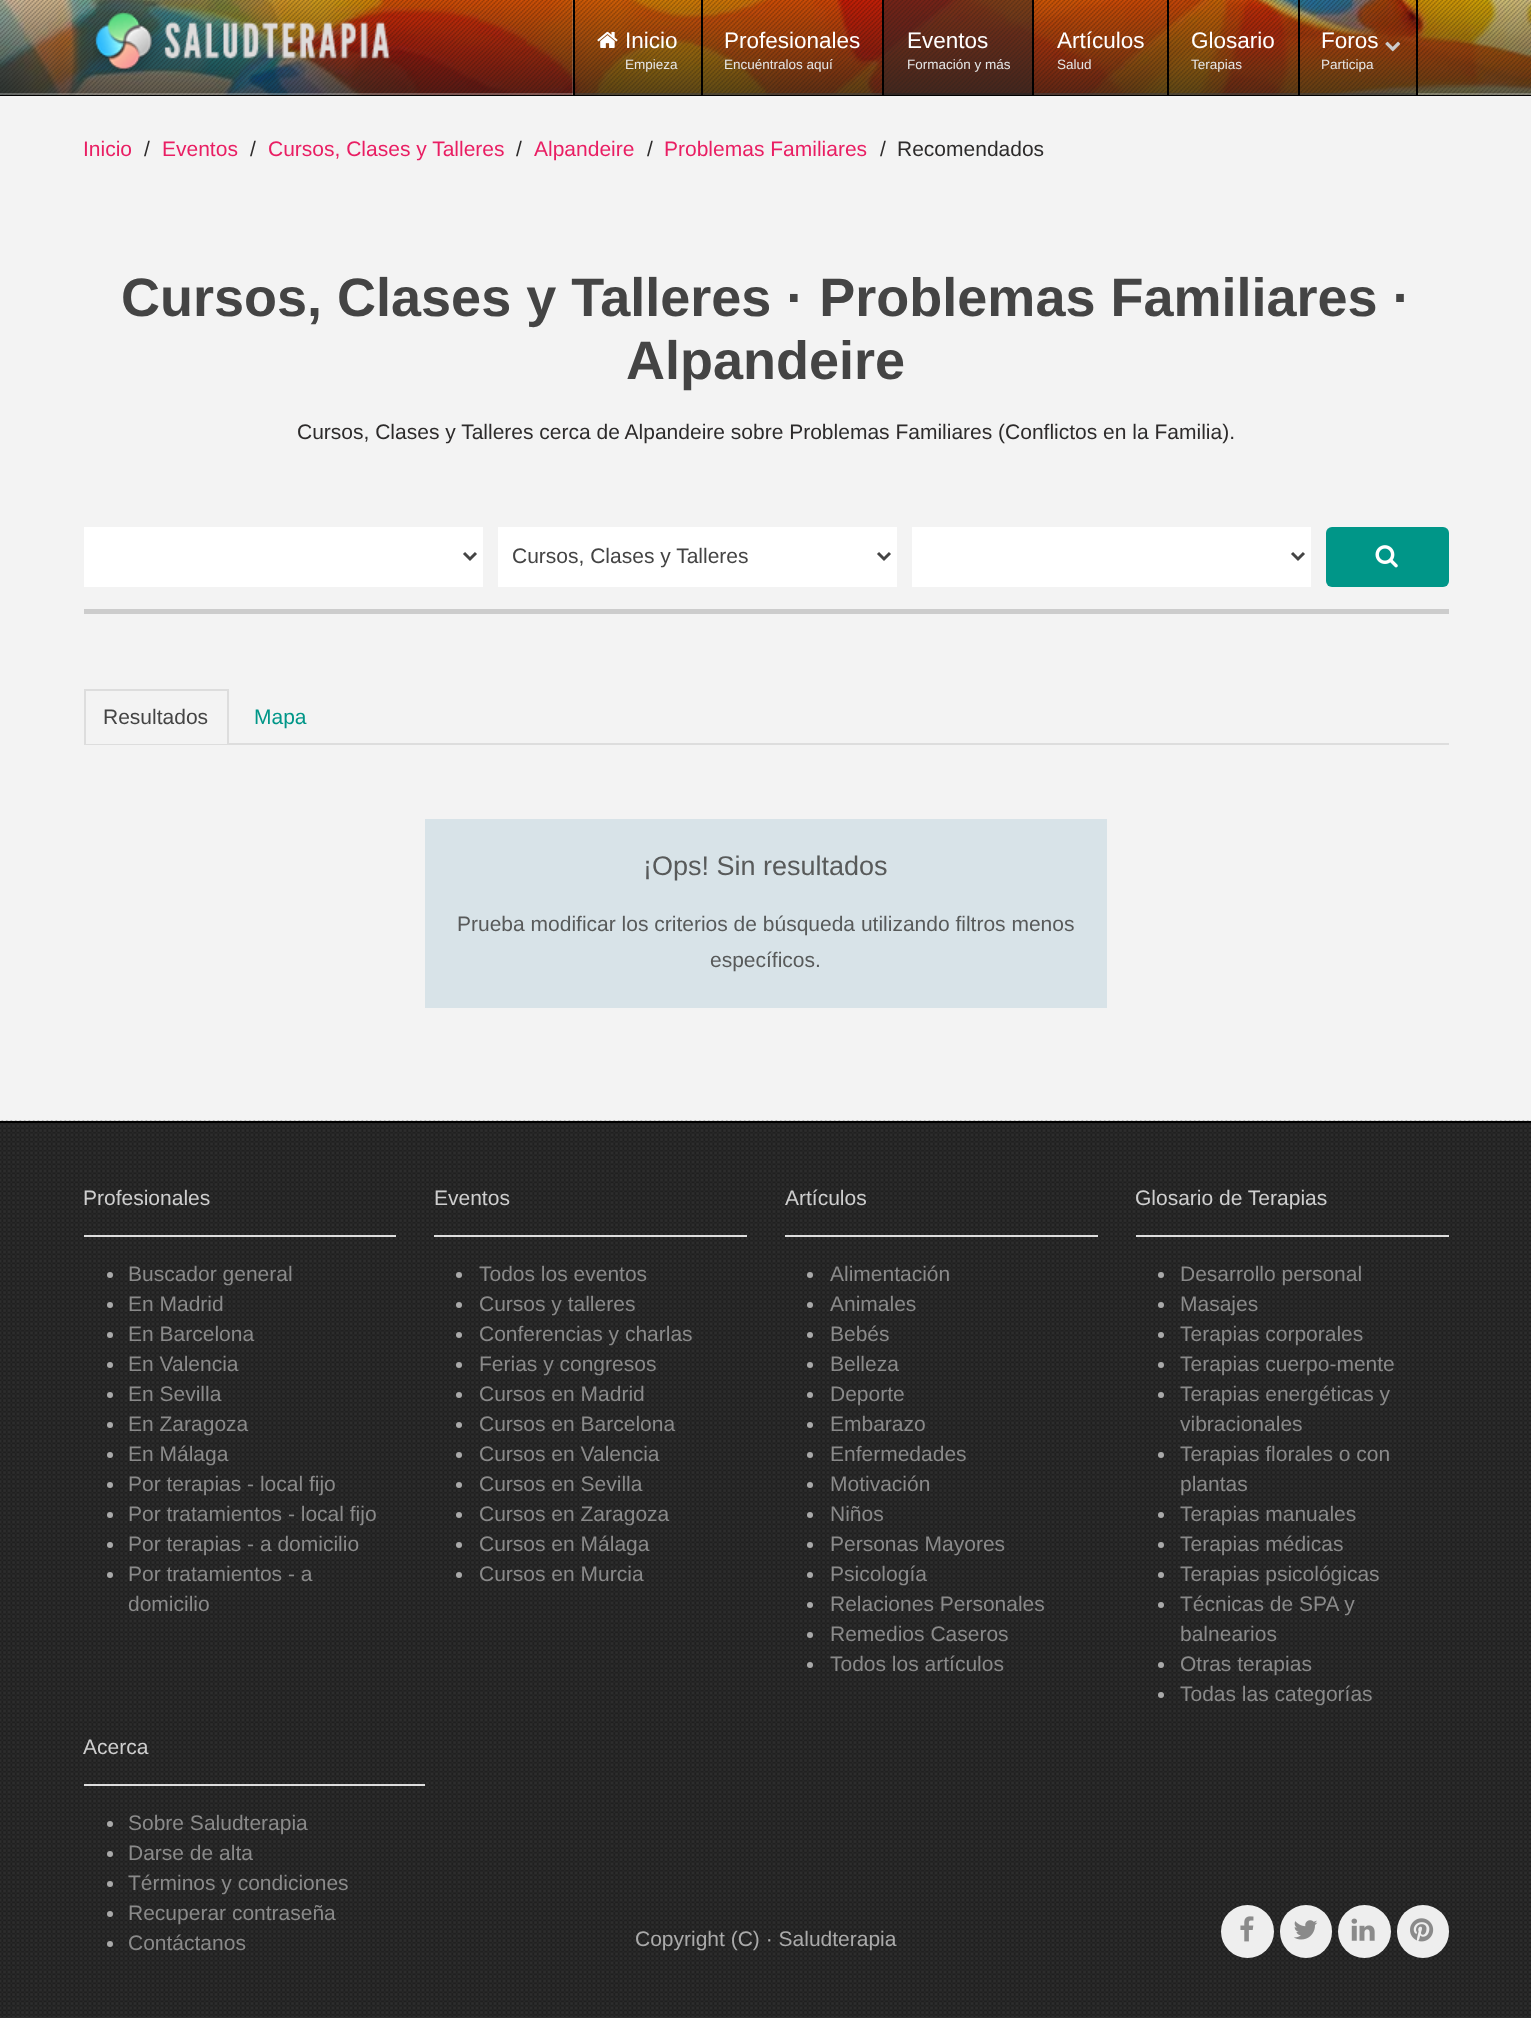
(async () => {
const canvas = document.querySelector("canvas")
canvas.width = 1531
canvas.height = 2023
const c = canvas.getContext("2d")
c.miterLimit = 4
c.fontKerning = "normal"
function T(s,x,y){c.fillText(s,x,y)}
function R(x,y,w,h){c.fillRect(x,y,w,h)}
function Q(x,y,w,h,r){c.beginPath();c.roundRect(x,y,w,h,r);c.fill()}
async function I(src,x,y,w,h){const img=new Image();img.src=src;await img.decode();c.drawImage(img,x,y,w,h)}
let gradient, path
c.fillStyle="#fff"
R(0,0,1531,2023)
await I("1.png",0,0,1531,95)
await I("2.png",0,0,1531,95)
gradient = c.createLinearGradient(766,-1.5,766,95)
gradient.addColorStop(0,"#1b1b1b33")
gradient.addColorStop(1,"#1b1b1bb3")
c.fillStyle = gradient
R(0,0,1531,95)
c.fillStyle="#e1e1e14d"
R(0,93,1531,2)
c.fillStyle="#000"
R(0,95,1531,1)
await I("3.png",93,11,298,64)
c.fillStyle="#00000066"
R(573,93,128,2)
c.fillStyle="#000"
R(701,0,2,95)
c.fillStyle="#e1e1e133"
R(572,0,1,95)
c.fillStyle="#000"
R(573,0,2,95)
await I("4.png",597,31,21,17)
c.font="22.5px Liberation Sans"
c.fillStyle="#fff"
T("Inicio",625,48)
c.font="13.5px Liberation Sans"
c.fillStyle="#e6e6e6"
T("Empieza",625,69)
c.fillStyle="#00000066"
R(702,93,180,2)
c.fillStyle="#000"
R(882,0,2,95)
c.font="22.5px Liberation Sans"
c.fillStyle="#fff"
T("Profesionales",724,48)
c.font="13.5px Liberation Sans"
c.fillStyle="#e6e6e6"
T("Encuéntralos aquí",724,69)
c.fillStyle="#28282880"
R(884,0,148,95)
c.fillStyle="#00000066"
R(884,93,148,2)
c.fillStyle="#000"
R(1032,0,2,95)
c.font="22.5px Liberation Sans"
c.fillStyle="#fff"
T("Eventos",907,48)
c.font="13.5px Liberation Sans"
c.fillStyle="#e6e6e6"
T("Formación y más",907,69)
c.fillStyle="#00000066"
R(1034,93,133,2)
c.fillStyle="#000"
R(1167,0,2,95)
c.font="22.5px Liberation Sans"
c.fillStyle="#fff"
T("Artículos",1057,48)
c.font="13.5px Liberation Sans"
c.fillStyle="#e6e6e6"
T("Salud",1057,69)
c.fillStyle="#00000066"
R(1169,93,129,2)
c.fillStyle="#000"
R(1298,0,2,95)
c.font="22.5px Liberation Sans"
c.fillStyle="#fff"
T("Glosario",1191,48)
c.font="13.5px Liberation Sans"
c.fillStyle="#e6e6e6"
T("Terapias",1191,69)
c.fillStyle="#00000066"
R(1299,93,117,2)
c.fillStyle="#000"
R(1416,0,2,95)
c.font="22.5px Liberation Sans"
c.fillStyle="#fff"
T("Foros",1321,48)
await I("5.png",1385,41,16,11)
c.font="13.5px Liberation Sans"
c.fillStyle="#e6e6e6"
T("Participa",1321,69)
c.fillStyle="#f3f3f3"
R(0,96,1531,1025)
c.font="21px Liberation Sans"
c.fillStyle="#e91e63"
T("Inicio",83,156)
c.fillStyle="#2d2b2b"
T("/",144,156)
c.fillStyle="#e91e63"
T("Eventos",162,156)
c.fillStyle="#2d2b2b"
T("/",250,156)
c.fillStyle="#e91e63"
T("Cursos, Clases y Talleres",268,156)
c.fillStyle="#2d2b2b"
T("/",516,156)
c.fillStyle="#e91e63"
T("Alpandeire",534,156)
c.fillStyle="#2d2b2b"
T("/",647,156)
c.fillStyle="#e91e63"
T("Problemas Familiares",664,156)
c.fillStyle="#2d2b2b"
T("/",880,156)
T("Recomendados",897,156)
c.font="bold 54px Liberation Sans"
c.fillStyle="#444"
T("Cursos, Clases y Talleres · Problemas Familiares ·",121,316)
T("Alpandeire",626,379)
c.font="21px Liberation Sans"
c.fillStyle="#2d2b2b"
T("Cursos, Clases y Talleres cerca de Alpandeire sobre Problemas Familiares (Conflictos en la Familia).",297,439)
c.fillStyle="#fff"
R(84,527,399,60)
path = new Path2D("M464 553l6 6l6-6")
c.strokeStyle="#444"
c.lineWidth=3
c.stroke(path)
R(498,527,399,60)
path = new Path2D("M878 553l6 6l6-6")
c.stroke(path)
c.fillStyle="#444"
T("Cursos, Clases y Talleres",512,563)
c.fillStyle="#fff"
R(912,527,399,60)
path = new Path2D("M1292 553l6 6l6-6")
c.stroke(path)
c.fillStyle="#009688"
Q(1326,527,123,60,6)
await I("6.png",1375,545,23,23)
c.fillStyle="#ccc"
R(84,609,1365,5)
c.fillStyle="#ddd"
R(84,743,1365,2)
c.fillStyle="#f3f3f3"
R(86,743,141,1)
c.fillStyle="#ddd"
R(84,689,144,2)
R(227,689,2,55)
R(84,689,2,55)
c.fillStyle="#444"
T("Resultados",103,724)
c.fillStyle="#009688"
T("Mapa",254,724)
c.fillStyle="#d8e3e8"
R(425,819,682,189)
c.font="27px Liberation Sans"
c.fillStyle="#585a5a"
T("¡Ops! Sin resultados",643,875)
c.font="21px Liberation Sans"
T("Prueba modificar los criterios de búsqueda utilizando filtros menos",457,931)
T("específicos.",710,967)
c.fillStyle="#2d2d2d"
R(0,1123,1531,895)
await I("7.png",0,1120,1531,897)
c.fillStyle="#000"
R(0,1121,1531,2)
c.fillStyle="#cecece"
T("Profesionales",83,1205)
c.fillStyle="#ddd"
R(84,1235,312,2)
c.fillStyle="#aaa"
c.beginPath()
c.arc(110,1275,3,0,7)
c.fill()
c.fillStyle="#8a8a8a"
T("Buscador general",128,1281)
c.fillStyle="#aaa"
c.beginPath()
c.arc(110,1305,3,0,7)
c.fill()
c.fillStyle="#8a8a8a"
T("En Madrid",128,1311)
c.fillStyle="#aaa"
c.beginPath()
c.arc(110,1335,3,0,7)
c.fill()
c.fillStyle="#8a8a8a"
T("En Barcelona",128,1341)
c.fillStyle="#aaa"
c.beginPath()
c.arc(110,1365,3,0,7)
c.fill()
c.fillStyle="#8a8a8a"
T("En Valencia",128,1371)
c.fillStyle="#aaa"
c.beginPath()
c.arc(110,1395,3,0,7)
c.fill()
c.fillStyle="#8a8a8a"
T("En Sevilla",128,1401)
c.fillStyle="#aaa"
c.beginPath()
c.arc(110,1425,3,0,7)
c.fill()
c.fillStyle="#8a8a8a"
T("En Zaragoza",128,1431)
c.fillStyle="#aaa"
c.beginPath()
c.arc(110,1455,3,0,7)
c.fill()
c.fillStyle="#8a8a8a"
T("En Málaga",128,1461)
c.fillStyle="#aaa"
c.beginPath()
c.arc(110,1485,3,0,7)
c.fill()
c.fillStyle="#8a8a8a"
T("Por terapias - local fijo",128,1491)
c.fillStyle="#aaa"
c.beginPath()
c.arc(110,1515,3,0,7)
c.fill()
c.fillStyle="#8a8a8a"
T("Por tratamientos - local fijo",128,1521)
c.fillStyle="#aaa"
c.beginPath()
c.arc(110,1545,3,0,7)
c.fill()
c.fillStyle="#8a8a8a"
T("Por terapias - a domicilio",128,1551)
c.fillStyle="#aaa"
c.beginPath()
c.arc(110,1575,3,0,7)
c.fill()
c.fillStyle="#8a8a8a"
T("Por tratamientos - a",128,1581)
T("domicilio",128,1611)
c.fillStyle="#cecece"
T("Eventos",434,1205)
c.fillStyle="#ddd"
R(434,1235,313,2)
c.fillStyle="#aaa"
c.beginPath()
c.arc(459,1275,3,0,7)
c.fill()
c.fillStyle="#8a8a8a"
T("Todos los eventos",479,1281)
c.fillStyle="#aaa"
c.beginPath()
c.arc(459,1305,3,0,7)
c.fill()
c.fillStyle="#8a8a8a"
T("Cursos y talleres",479,1311)
c.fillStyle="#aaa"
c.beginPath()
c.arc(459,1335,3,0,7)
c.fill()
c.fillStyle="#8a8a8a"
T("Conferencias y charlas",479,1341)
c.fillStyle="#aaa"
c.beginPath()
c.arc(459,1365,3,0,7)
c.fill()
c.fillStyle="#8a8a8a"
T("Ferias y congresos",479,1371)
c.fillStyle="#aaa"
c.beginPath()
c.arc(459,1395,3,0,7)
c.fill()
c.fillStyle="#8a8a8a"
T("Cursos en Madrid",479,1401)
c.fillStyle="#aaa"
c.beginPath()
c.arc(459,1425,3,0,7)
c.fill()
c.fillStyle="#8a8a8a"
T("Cursos en Barcelona",479,1431)
c.fillStyle="#aaa"
c.beginPath()
c.arc(459,1455,3,0,7)
c.fill()
c.fillStyle="#8a8a8a"
T("Cursos en Valencia",479,1461)
c.fillStyle="#aaa"
c.beginPath()
c.arc(459,1485,3,0,7)
c.fill()
c.fillStyle="#8a8a8a"
T("Cursos en Sevilla",479,1491)
c.fillStyle="#aaa"
c.beginPath()
c.arc(459,1515,3,0,7)
c.fill()
c.fillStyle="#8a8a8a"
T("Cursos en Zaragoza",479,1521)
c.fillStyle="#aaa"
c.beginPath()
c.arc(459,1545,3,0,7)
c.fill()
c.fillStyle="#8a8a8a"
T("Cursos en Málaga",479,1551)
c.fillStyle="#aaa"
c.beginPath()
c.arc(459,1575,3,0,7)
c.fill()
c.fillStyle="#8a8a8a"
T("Cursos en Murcia",479,1581)
c.fillStyle="#cecece"
T("Artículos",785,1205)
c.fillStyle="#ddd"
R(785,1235,313,2)
c.fillStyle="#aaa"
c.beginPath()
c.arc(810,1275,3,0,7)
c.fill()
c.fillStyle="#8a8a8a"
T("Alimentación",830,1281)
c.fillStyle="#aaa"
c.beginPath()
c.arc(810,1305,3,0,7)
c.fill()
c.fillStyle="#8a8a8a"
T("Animales",830,1311)
c.fillStyle="#aaa"
c.beginPath()
c.arc(810,1335,3,0,7)
c.fill()
c.fillStyle="#8a8a8a"
T("Bebés",830,1341)
c.fillStyle="#aaa"
c.beginPath()
c.arc(810,1365,3,0,7)
c.fill()
c.fillStyle="#8a8a8a"
T("Belleza",830,1371)
c.fillStyle="#aaa"
c.beginPath()
c.arc(810,1395,3,0,7)
c.fill()
c.fillStyle="#8a8a8a"
T("Deporte",830,1401)
c.fillStyle="#aaa"
c.beginPath()
c.arc(810,1425,3,0,7)
c.fill()
c.fillStyle="#8a8a8a"
T("Embarazo",830,1431)
c.fillStyle="#aaa"
c.beginPath()
c.arc(810,1455,3,0,7)
c.fill()
c.fillStyle="#8a8a8a"
T("Enfermedades",830,1461)
c.fillStyle="#aaa"
c.beginPath()
c.arc(810,1485,3,0,7)
c.fill()
c.fillStyle="#8a8a8a"
T("Motivación",830,1491)
c.fillStyle="#aaa"
c.beginPath()
c.arc(810,1515,3,0,7)
c.fill()
c.fillStyle="#8a8a8a"
T("Niños",830,1521)
c.fillStyle="#aaa"
c.beginPath()
c.arc(810,1545,3,0,7)
c.fill()
c.fillStyle="#8a8a8a"
T("Personas Mayores",830,1551)
c.fillStyle="#aaa"
c.beginPath()
c.arc(810,1575,3,0,7)
c.fill()
c.fillStyle="#8a8a8a"
T("Psicología",830,1581)
c.fillStyle="#aaa"
c.beginPath()
c.arc(810,1605,3,0,7)
c.fill()
c.fillStyle="#8a8a8a"
T("Relaciones Personales",830,1611)
c.fillStyle="#aaa"
c.beginPath()
c.arc(810,1635,3,0,7)
c.fill()
c.fillStyle="#8a8a8a"
T("Remedios Caseros",830,1641)
c.fillStyle="#aaa"
c.beginPath()
c.arc(810,1665,3,0,7)
c.fill()
c.fillStyle="#8a8a8a"
T("Todos los artículos",830,1671)
c.fillStyle="#cecece"
T("Glosario de Terapias",1135,1205)
c.fillStyle="#ddd"
R(1136,1235,313,2)
c.fillStyle="#aaa"
c.beginPath()
c.arc(1161,1275,3,0,7)
c.fill()
c.fillStyle="#8a8a8a"
T("Desarrollo personal",1180,1281)
c.fillStyle="#aaa"
c.beginPath()
c.arc(1161,1305,3,0,7)
c.fill()
c.fillStyle="#8a8a8a"
T("Masajes",1180,1311)
c.fillStyle="#aaa"
c.beginPath()
c.arc(1161,1335,3,0,7)
c.fill()
c.fillStyle="#8a8a8a"
T("Terapias corporales",1180,1341)
c.fillStyle="#aaa"
c.beginPath()
c.arc(1161,1365,3,0,7)
c.fill()
c.fillStyle="#8a8a8a"
T("Terapias cuerpo-mente",1180,1371)
c.fillStyle="#aaa"
c.beginPath()
c.arc(1161,1395,3,0,7)
c.fill()
c.fillStyle="#8a8a8a"
T("Terapias energéticas y",1180,1401)
T("vibracionales",1180,1431)
c.fillStyle="#aaa"
c.beginPath()
c.arc(1161,1455,3,0,7)
c.fill()
c.fillStyle="#8a8a8a"
T("Terapias florales o con",1180,1461)
T("plantas",1180,1491)
c.fillStyle="#aaa"
c.beginPath()
c.arc(1161,1515,3,0,7)
c.fill()
c.fillStyle="#8a8a8a"
T("Terapias manuales",1180,1521)
c.fillStyle="#aaa"
c.beginPath()
c.arc(1161,1545,3,0,7)
c.fill()
c.fillStyle="#8a8a8a"
T("Terapias médicas",1180,1551)
c.fillStyle="#aaa"
c.beginPath()
c.arc(1161,1575,3,0,7)
c.fill()
c.fillStyle="#8a8a8a"
T("Terapias psicológicas",1180,1581)
c.fillStyle="#aaa"
c.beginPath()
c.arc(1161,1605,3,0,7)
c.fill()
c.fillStyle="#8a8a8a"
T("Técnicas de SPA y",1180,1611)
T("balnearios",1180,1641)
c.fillStyle="#aaa"
c.beginPath()
c.arc(1161,1665,3,0,7)
c.fill()
c.fillStyle="#8a8a8a"
T("Otras terapias",1180,1671)
c.fillStyle="#aaa"
c.beginPath()
c.arc(1161,1695,3,0,7)
c.fill()
c.fillStyle="#8a8a8a"
T("Todas las categorías",1180,1701)
c.fillStyle="#cecece"
T("Acerca",83,1754)
c.fillStyle="#ddd"
R(84,1784,341,2)
c.fillStyle="#aaa"
c.beginPath()
c.arc(110,1824,3,0,7)
c.fill()
c.fillStyle="#8a8a8a"
T("Sobre Saludterapia",128,1830)
c.fillStyle="#aaa"
c.beginPath()
c.arc(110,1854,3,0,7)
c.fill()
c.fillStyle="#8a8a8a"
T("Darse de alta",128,1860)
c.fillStyle="#aaa"
c.beginPath()
c.arc(110,1884,3,0,7)
c.fill()
c.fillStyle="#8a8a8a"
T("Términos y condiciones",128,1890)
c.fillStyle="#aaa"
c.beginPath()
c.arc(110,1914,3,0,7)
c.fill()
c.fillStyle="#8a8a8a"
T("Recuperar contraseña",128,1920)
c.fillStyle="#aaa"
c.beginPath()
c.arc(110,1944,3,0,7)
c.fill()
c.fillStyle="#8a8a8a"
T("Contáctanos",128,1950)
c.fillStyle="#aaa"
T("Copyright (C) · Saludterapia",635,1946)
c.fillStyle="#eee"
c.beginPath()
c.arc(1247.5,1931.5,26.5,0,7)
c.fill()
await I("8.png",1240,1916,14,26)
Q(1280,1905,52,53,26)
await I("9.png",1294,1920,24,20)
c.beginPath()
c.arc(1364.5,1931.5,26.5,0,7)
c.fill()
await I("10.png",1351,1918,24,23)
Q(1397,1905,52,53,26)
await I("11.png",1410,1918,24,24)
})()
